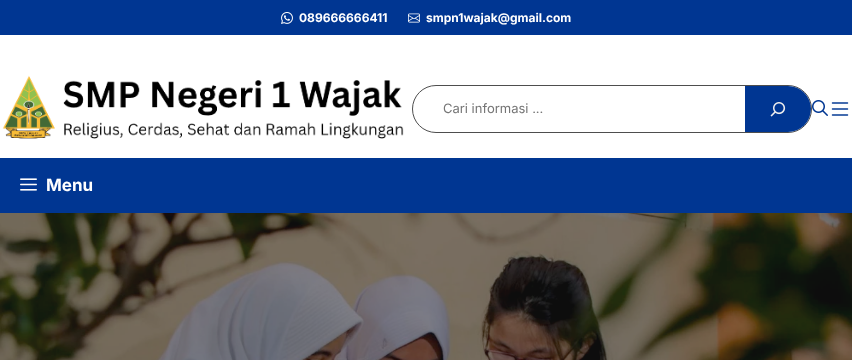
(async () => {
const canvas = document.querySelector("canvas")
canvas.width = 852
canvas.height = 360
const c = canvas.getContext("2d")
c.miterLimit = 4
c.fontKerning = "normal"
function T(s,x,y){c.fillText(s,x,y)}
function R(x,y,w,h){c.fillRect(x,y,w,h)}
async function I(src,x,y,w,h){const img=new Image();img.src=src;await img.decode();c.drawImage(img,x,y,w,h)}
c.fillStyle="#fff"
R(0,0,852,360)
c.fillStyle="#003692"
R(0,0,852,35)
await I("1.png",281,12,12,12)
c.font="bold 12px Inter"
c.fillStyle="#fff"
T("089666666411",299,22)
await I("2.png",408,13,12,10)
T("smpn1wajak@gmail.com",426,22)
await I("3.png",2,75,402,64)
c.beginPath()
c.roundRect(412.5,85.5,399,47,23.5)
c.strokeStyle="#4e4e4e"
c.stroke()
c.font="13px Inter"
c.fillStyle="#757575"
T("Cari informasi ...",443,113)
c.fillStyle="#003692"
c.beginPath()
c.roundRect(745,86,66,46,[0,23,23,0])
c.fill()
await I("4.png",770,102,16,15)
await I("5.png",812,100,16,16)
await I("6.png",831,102,18,14)
R(0,158,852,55)
await I("7.png",20,178,17,13)
c.font="bold 17px Inter"
c.fillStyle="#fff"
T("Menu",46,191)
c.fillStyle="#1a1919"
R(0,213,852,147)
await I("8.png",0,213,852,147)
})()
